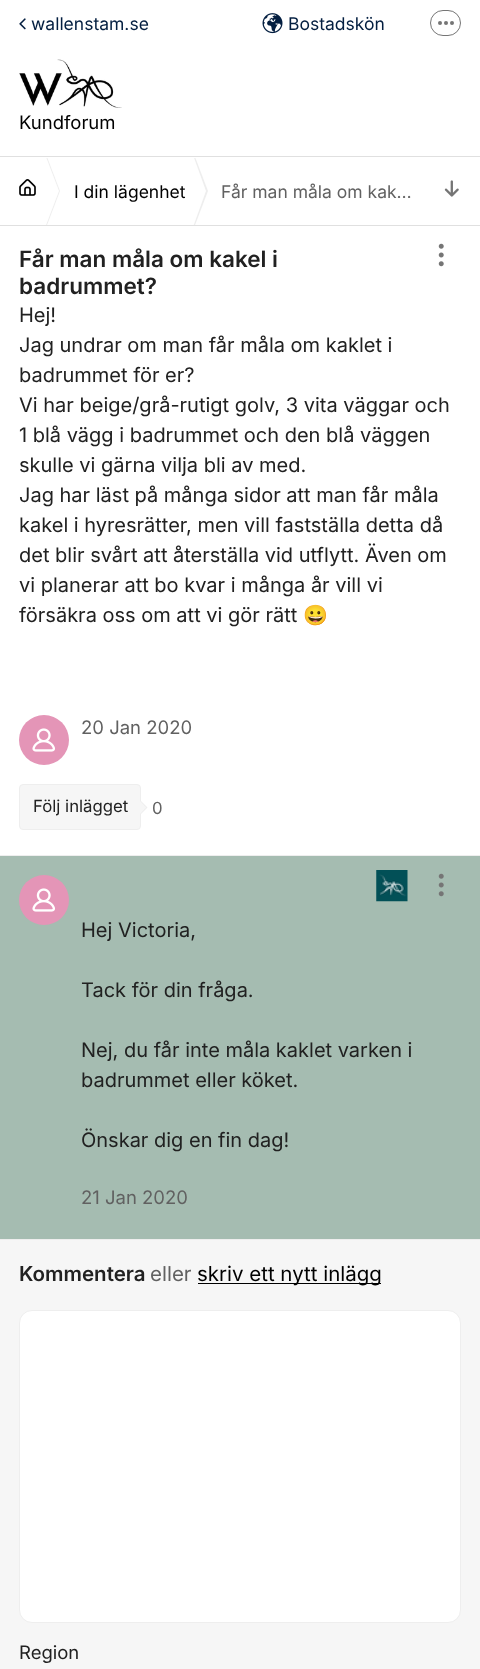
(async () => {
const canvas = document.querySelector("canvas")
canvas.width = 480
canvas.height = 1669
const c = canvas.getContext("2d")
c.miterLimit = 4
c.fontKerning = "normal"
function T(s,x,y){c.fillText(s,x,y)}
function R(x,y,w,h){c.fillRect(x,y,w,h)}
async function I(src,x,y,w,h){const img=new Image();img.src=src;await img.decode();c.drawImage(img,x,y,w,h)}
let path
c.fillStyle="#fff"
R(0,0,480,1669)
await I("1.png",19,18,7,12)
c.font="17.5px Inter"
c.fillStyle="#031e40"
T("wallenstam.se",31,30)
await I("2.png",262,13,21,21)
T("Bostadskön",288,30)
c.beginPath()
c.roundRect(430.5,10.5,30,25,12.5)
c.strokeStyle="#757575"
c.stroke()
c.fillStyle="#757575"
c.beginPath()
c.arc(440,23,2,0,7)
c.fill()
c.beginPath()
c.arc(446,23,2,0,7)
c.fill()
c.beginPath()
c.arc(452,23,2,0,7)
c.fill()
await I("3.png",19,59,103,49)
c.font="18.5px Inter"
c.fillStyle="#000"
T("Kundforum",19,129)
c.fillStyle="#e0e0e0"
R(0,156,480,1)
R(0,225,480,1)
c.save()
c.beginPath()
c.rect(0,158,480,67)
c.clip()
c.fillStyle="#eee"
path = new Path2D("M41 241v-100l19 50z")
c.fill(path)
c.fillStyle="#fff"
path = new Path2D("M40 241v-100l19 50z")
c.fill(path)
c.restore()
await I("4.png",19,179,17,17)
c.save()
c.beginPath()
c.rect(0,158,480,67)
c.clip()
c.fillStyle="#eee"
path = new Path2D("M189 241v-100l19 50z")
c.fill(path)
c.fillStyle="#fff"
path = new Path2D("M188 241v-100l18 50z")
c.fill(path)
c.restore()
c.font="17.5px Inter"
c.fillStyle="#000"
T("I din lägenhet",74,198)
c.fillStyle="#616161"
T("Får man måla om kak…",221,198)
await I("5.png",444,180,15,17)
c.font="600 22.5px Inter"
c.fillStyle="#212121"
T("Får man måla om kakel i",19,267)
T("badrummet?",19,294)
await I("6.png",438,243,6,24)
c.font="20px Inter"
T("Hej!",19,322)
T("Jag undrar om man får måla om kaklet i",19,352)
T("badrummet för er?",19,382)
T("Vi har beige/grå-rutigt golv, 3 vita väggar och",19,412)
T("1 blå vägg i badrummet och den blå väggen",19,442)
T("skulle vi gärna vilja bli av med.",19,472)
T("Jag har läst på många sidor att man får måla",19,502)
T("kakel i hyresrätter, men vill fastställa detta då",19,532)
T("det blir svårt att återställa vid utflytt. Även om",19,562)
T("vi planerar att bo kvar i många år vill vi",19,592)
T("försäkra oss om att vi gör rätt",19,622)
c.font="20px Noto Color Emoji"
T("😀",303,622)
c.fillStyle="#e495b7"
c.beginPath()
c.arc(44,740,25,0,7)
c.fill()
await I("7.png",32,728,23,24)
c.font="18.5px Inter"
c.fillStyle="#616161"
T("20 Jan 2020",81,734)
c.fillStyle="#f6f6f6"
c.beginPath()
c.roundRect(19.5,784.5,121,45,3.5)
c.fill()
c.strokeStyle="#eee"
c.stroke()
c.font="16.75px Inter"
c.fillStyle="#212121"
T("Följ inlägget",33,812)
c.fillStyle="#eee"
path = new Path2D("M140 815v-15l7.5 7.5z")
c.fill(path)
c.fillStyle="#f6f6f6"
path = new Path2D("M139 815v-15l7 7.5z")
c.fill(path)
c.fillStyle="#616161"
T("0",152,814)
c.fillStyle="#a5bcb1"
R(0,856,480,383)
c.fillStyle="#eee"
R(0,855,480,1)
c.fillStyle="#e495b7"
c.beginPath()
c.arc(44,900,25,0,7)
c.fill()
await I("7.png",32,888,23,24)
await I("8.png",376,870,32,32)
c.font="20px Inter"
c.fillStyle="#212121"
T("Hej Victoria,",81,937)
T("Tack för din fråga.",81,997)
T("Nej, du får inte måla kaklet varken i",81,1057)
T("badrummet eller köket.",81,1087)
T("Önskar dig en fin dag!",81,1147)
await I("9.png",438,873,6,24)
c.font="18.5px Inter"
c.fillStyle="#616161"
T("21 Jan 2020",81,1204)
c.fillStyle="#f6f6f6"
R(0,1240,480,429)
c.fillStyle="#eee"
R(0,1239,480,1)
c.font="600 20.5px Inter"
c.fillStyle="#212121"
T("Kommentera",19,1281)
c.font="20.5px Inter"
c.fillStyle="#616161"
T("eller",150,1281)
c.fillStyle="#000"
R(198,1283,183,1)
T("skriv ett nytt inlägg",197,1281)
c.fillStyle="#fff"
c.beginPath()
c.roundRect(19.5,1310.5,441,312,12.5)
c.fill()
c.stroke()
c.font="18.5px Inter"
c.fillStyle="#212121"
T("Region",19,1659)
})()
